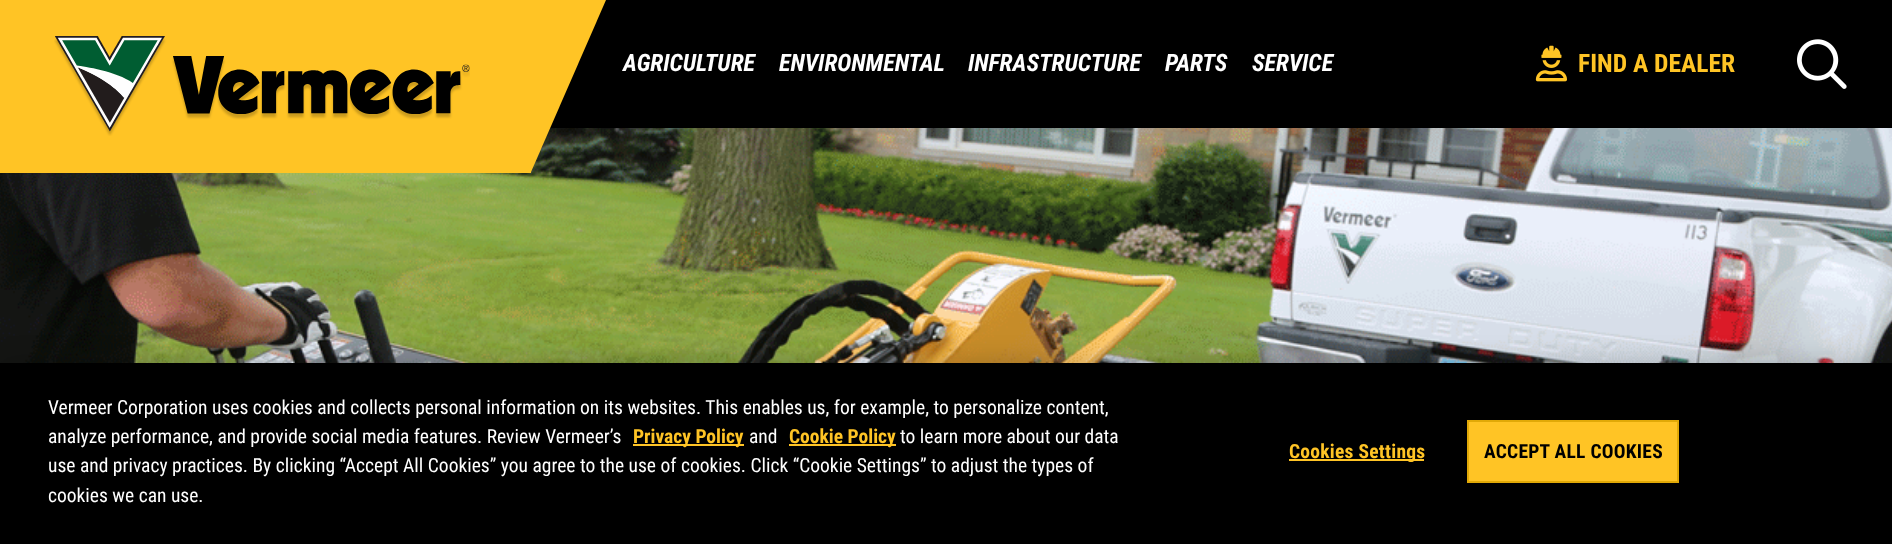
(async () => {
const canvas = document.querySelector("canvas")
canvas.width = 1892
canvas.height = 544
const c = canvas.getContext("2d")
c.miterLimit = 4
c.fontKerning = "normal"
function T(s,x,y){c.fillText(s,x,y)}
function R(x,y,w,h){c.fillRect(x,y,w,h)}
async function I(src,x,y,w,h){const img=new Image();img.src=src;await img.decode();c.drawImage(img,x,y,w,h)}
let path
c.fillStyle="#fff"
R(0,0,1892,544)
c.fillStyle="#000"
R(550,0,1342,128)
await I("4.png",0,128,1892,235)
c.fillStyle="#ffc425"
R(0,0,441,173)
path = new Path2D("M441 0h165l-75 172z")
c.fill(path)
R(441,0,90,173)
await I("1.png",54,36,416,100)
c.font="italic bold 24px Roboto Condensed"
c.fillStyle="#fff"
T("AGRICULTURE",623,71)
T("ENVIRONMENTAL",779,71)
T("INFRASTRUCTURE",968,71)
T("PARTS",1165,71)
T("SERVICE",1252,71)
await I("2.png",1535,45,32,37)
c.font="bold 25.5px Roboto Condensed"
c.fillStyle="#ffc425"
T("FIND A DEALER",1578,72)
await I("3.png",1797,39,50,50)
c.fillStyle="#00000033"
c.filter="blur(13.5px)"
c.beginPath()
c.rect(0,363,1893,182)
c.fill()
c.filter="none"
c.fillStyle="#000"
R(0,363,1892,181)
c.font="19.5px Roboto Condensed"
c.fillStyle="#fff"
T("Vermeer Corporation uses cookies and collects personal information on its websites. This enables us, for example, to personalize content,",48,414)
T("analyze performance, and provide social media features. Review Vermeer’s",48,443)
c.fillStyle="#ffc425"
R(633,444,111,2)
c.font="bold 19.5px Roboto Condensed"
T("Privacy Policy",633,443)
c.font="19.5px Roboto Condensed"
c.fillStyle="#fff"
T("and",749,443)
c.fillStyle="#ffc425"
R(789,444,107,2)
c.font="bold 19.5px Roboto Condensed"
T("Cookie Policy",789,443)
c.font="19.5px Roboto Condensed"
c.fillStyle="#fff"
T("to learn more about our data",900,443)
T("use and privacy practices. By clicking “Accept All Cookies” you agree to the use of cookies. Click “Cookie Settings” to adjust the types of",48,472)
T("cookies we can use.",48,502)
c.fillStyle="#ffc425"
R(1289,459,135,2)
c.letterSpacing="0.25px"
c.font="bold 19.5px Roboto Condensed"
T("Cookies Settings",1289,458)
c.beginPath()
c.rect(1468,421,210,61)
c.fill()
c.strokeStyle="#e1a907"
c.lineWidth=2
c.stroke()
c.fillStyle="#000"
T("ACCEPT ALL COOKIES",1484,458)
})()
